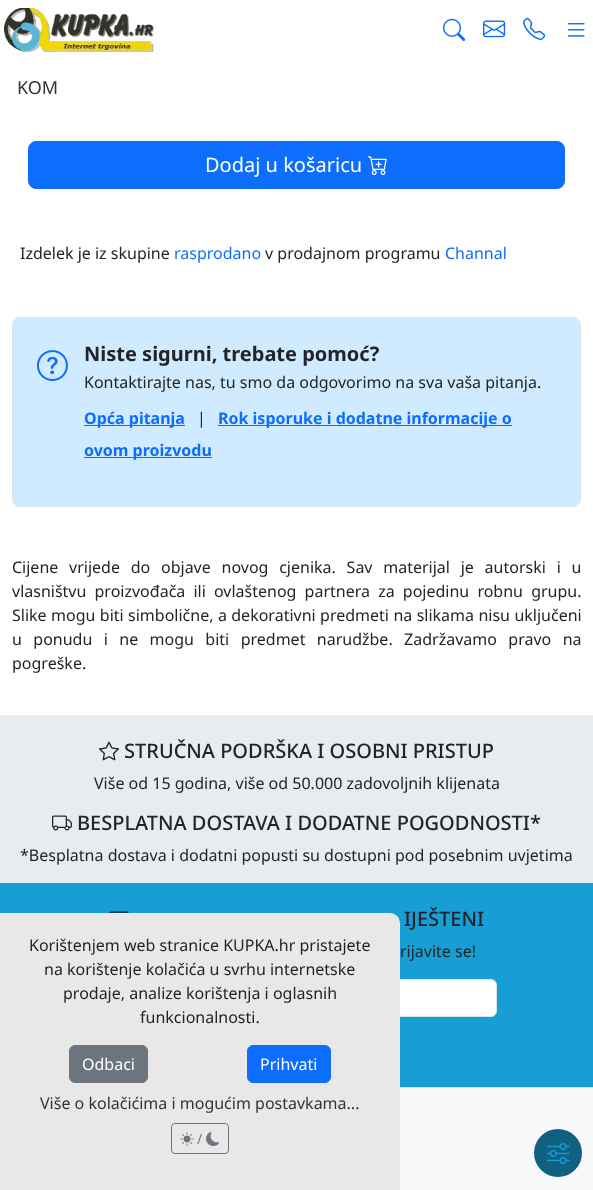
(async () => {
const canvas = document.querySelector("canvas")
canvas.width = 593
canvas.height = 1190
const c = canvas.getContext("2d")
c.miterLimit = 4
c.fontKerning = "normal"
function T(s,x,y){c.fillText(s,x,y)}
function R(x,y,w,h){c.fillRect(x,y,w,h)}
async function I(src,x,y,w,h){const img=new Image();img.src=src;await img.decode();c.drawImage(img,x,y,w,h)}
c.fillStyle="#fff"
R(0,0,593,1190)
await I("1.png",4,8,150,44)
await I("2.png",443,18,23,23)
await I("3.png",483,20,23,18)
await I("4.png",523,17,23,23)
await I("5.png",567,23,18,14)
c.font="18px Noto Sans"
c.fillStyle="#333"
T("KOM",17,94)
c.fillStyle="#0d6efd"
c.beginPath()
c.roundRect(28.5,141.5,536,47,7.5)
c.fill()
c.strokeStyle="#0d6efd"
c.stroke()
c.font="20px Noto Sans"
c.fillStyle="#fff"
T("Dodaj u košaricu",205,172)
await I("6.png",368,156,19,19)
c.font="16px Noto Sans"
c.fillStyle="#212529"
T("Izdelek je iz skupine",20,259)
c.fillStyle="#0d6efd"
T("rasprodano",174,259)
c.fillStyle="#212529"
T("v prodajnom programu",265,259)
c.fillStyle="#0d6efd"
T("Channal",445,259)
c.fillStyle="#d0ebff"
c.beginPath()
c.roundRect(12.5,317.5,568,189,7.5)
c.fill()
c.strokeStyle="#dee2e6"
c.stroke()
await I("7.png",37,350,31,31)
c.font="bold 20px Noto Sans"
c.fillStyle="#212529"
T("Niste sigurni, trebate pomoć?",84,361)
c.font="16px Noto Sans"
T("Kontaktirajte nas, tu smo da odgovorimo na sva vaša pitanja.",84,388)
c.fillStyle="#0d6efd"
R(84,425,101,1)
c.font="bold 16px Noto Sans"
T("Opća pitanja",84,424)
c.font="16px Noto Sans"
c.fillStyle="#212529"
T("|",197,424)
c.fillStyle="#0d6efd"
R(218,425,294,1)
c.font="bold 16px Noto Sans"
T("Rok isporuke i dodatne informacije o",218,424)
R(84,457,128,1)
T("ovom proizvodu",84,456)
c.wordSpacing="6.6px"
c.font="16px Noto Sans"
c.fillStyle="#212529"
T("Cijene vrijede do objave novog cjenika. Sav materijal je autorski i u",12,573)
c.wordSpacing="4px"
T("vlasništvu proizvođača ili ovlaštenog partnera za pojedinu robnu grupu.",12,597)
c.wordSpacing="0.25px"
T("Slike mogu biti simbolične, a dekorativni predmeti na slikama nisu uključeni",12,621)
c.wordSpacing="7.25px"
T("u ponudu i ne mogu biti predmet narudžbe. Zadržavamo pravo na",12,645)
c.wordSpacing="0px"
T("pogreške.",12,669)
c.fillStyle="#e9ecef"
R(0,715,593,168)
await I("8.png",99,741,20,20)
c.font="500 20px Noto Sans"
c.fillStyle="#212529"
T("STRUČNA PODRŠKA I OSOBNI PRISTUP",124,758)
c.font="16px Noto Sans"
T("Više od 15 godina, više od 50.000 zadovoljnih klijenata",94,789)
await I("9.png",52,815,20,16)
c.font="500 20px Noto Sans"
T("BESPLATNA DOSTAVA I DODATNE POGODNOSTI*",77,830)
c.font="16px Noto Sans"
T("*Besplatna dostava i dodatni popusti su dostupni pod posebnim uvjetima",20,861)
c.fillStyle="#179ed5"
R(0,883,593,204)
c.fillStyle="#fff"
c.beginPath()
c.roundRect(97.5,979.5,399,37,5.5)
c.fill()
c.stroke()
c.fillStyle="#e8e8e8"
c.beginPath()
c.roundRect(0,913,400,277,[0,10,0,0])
c.fill()
c.fillStyle="#212529"
T("Korištenjem web stranice KUPKA.hr pristajete",29,951)
T("na korištenje kolačića u svrhu internetske",44,975)
T("prodaje, analize korištenja i oglasnih",63,999)
T("funkcionalnosti.",140,1023)
c.fillStyle="#6c757d"
c.beginPath()
c.roundRect(69.5,1045.5,78,37,5.5)
c.fill()
c.strokeStyle="#6c757d"
c.stroke()
c.fillStyle="#fff"
T("Odbaci",82,1070)
c.fillStyle="#0d6efd"
c.beginPath()
c.roundRect(247.5,1045.5,83,37,5.5)
c.fill()
c.strokeStyle="#0d6efd"
c.stroke()
c.fillStyle="#fff"
T("Prihvati",260,1070)
c.fillStyle="#333"
T("Više o kolačićima i mogućim postavkama...",40,1109)
c.beginPath()
c.roundRect(171.5,1123.5,57,30,3.5)
c.strokeStyle="#6c757d"
c.stroke()
await I("10.png",180,1132,14,14)
c.font="14px Noto Sans"
c.fillStyle="#6c757d"
T("/",197,1144)
await I("11.png",206,1132,13,14)
await I("12.png",109,911,20,2)
c.font="500 20px Noto Sans"
c.fillStyle="#212529"
T("IJEŠTENI",404,926)
c.font="16px Noto Sans"
T("rijavite se!",400,957)
c.fillStyle="#f8f9fa"
R(400,1088,193,102)
c.fillStyle="#dee2e6"
R(400,1087,193,1)
c.fillStyle="#106181"
c.beginPath()
c.arc(558,1153,24,0,7)
c.fill()
await I("13.png",547,1143,23,21)
})()
